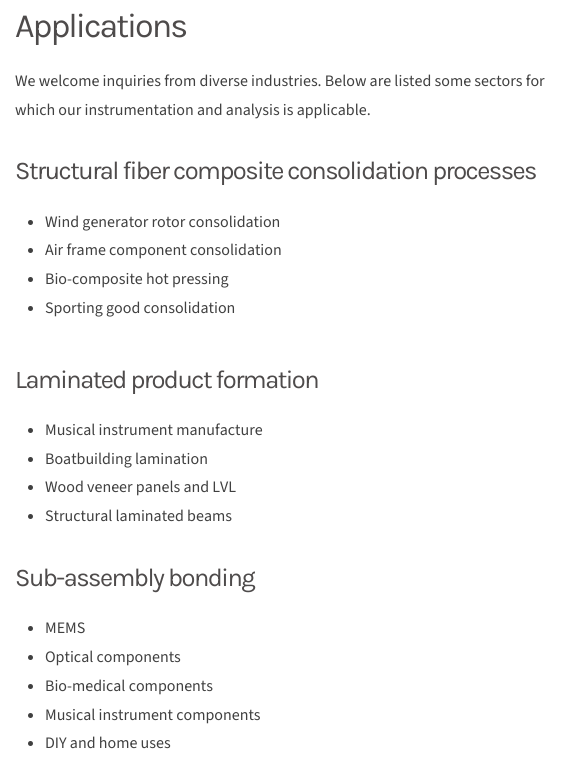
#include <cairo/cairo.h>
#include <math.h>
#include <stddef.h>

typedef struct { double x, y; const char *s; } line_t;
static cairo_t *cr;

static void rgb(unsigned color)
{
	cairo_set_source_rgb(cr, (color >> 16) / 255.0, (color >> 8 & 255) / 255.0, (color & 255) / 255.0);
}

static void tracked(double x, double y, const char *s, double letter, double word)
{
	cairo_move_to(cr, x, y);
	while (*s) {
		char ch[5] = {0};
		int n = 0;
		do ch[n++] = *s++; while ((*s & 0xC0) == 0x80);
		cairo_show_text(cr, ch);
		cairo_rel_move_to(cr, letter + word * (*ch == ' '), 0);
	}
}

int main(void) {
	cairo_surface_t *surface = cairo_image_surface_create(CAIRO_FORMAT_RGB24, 568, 775);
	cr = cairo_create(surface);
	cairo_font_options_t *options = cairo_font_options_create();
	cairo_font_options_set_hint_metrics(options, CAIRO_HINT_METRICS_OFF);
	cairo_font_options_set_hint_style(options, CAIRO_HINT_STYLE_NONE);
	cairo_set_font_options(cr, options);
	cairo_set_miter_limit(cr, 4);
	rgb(0xffffff);
	cairo_paint(cr);
	rgb(0x404040);
	cairo_arc(cr, 30.5, 222.5, 2.5, 0, 2 * M_PI);
	cairo_fill(cr);
	cairo_arc(cr, 30.5, 250.5, 2.5, 0, 2 * M_PI);
	cairo_fill(cr);
	cairo_arc(cr, 30.5, 279.5, 2.5, 0, 2 * M_PI);
	cairo_fill(cr);
	cairo_arc(cr, 30.5, 308.5, 2.5, 0, 2 * M_PI);
	cairo_fill(cr);
	cairo_arc(cr, 30.5, 430.5, 2.5, 0, 2 * M_PI);
	cairo_fill(cr);
	cairo_arc(cr, 30.5, 459.5, 2.5, 0, 2 * M_PI);
	cairo_fill(cr);
	cairo_arc(cr, 30.5, 487.5, 2.5, 0, 2 * M_PI);
	cairo_fill(cr);
	cairo_arc(cr, 30.5, 516.5, 2.5, 0, 2 * M_PI);
	cairo_fill(cr);
	cairo_arc(cr, 30.5, 628.5, 2.5, 0, 2 * M_PI);
	cairo_fill(cr);
	cairo_arc(cr, 30.5, 657.5, 2.5, 0, 2 * M_PI);
	cairo_fill(cr);
	cairo_arc(cr, 30.5, 686.5, 2.5, 0, 2 * M_PI);
	cairo_fill(cr);
	cairo_arc(cr, 30.5, 715.5, 2.5, 0, 2 * M_PI);
	cairo_fill(cr);
	cairo_arc(cr, 30.5, 743.5, 2.5, 0, 2 * M_PI);
	cairo_fill(cr);
	cairo_select_font_face(cr, "Karla", CAIRO_FONT_SLANT_NORMAL, CAIRO_FONT_WEIGHT_NORMAL);
	cairo_set_font_size(cr, 34);
	rgb(0x4e4b4b);
	tracked(15, 37, "Applications", -2, 0);
	cairo_select_font_face(cr, "Source Sans 3 ExtraLight", CAIRO_FONT_SLANT_NORMAL, CAIRO_FONT_WEIGHT_NORMAL);
	cairo_set_font_size(cr, 16);
	rgb(0x404040);
	cairo_move_to(cr, 15, 86);
	cairo_show_text(cr, "We welcome inquiries from diverse industries. Below are listed some sectors for");
	cairo_move_to(cr, 15, 115);
	cairo_show_text(cr, "which our instrumentation and analysis is applicable.");
	cairo_select_font_face(cr, "Karla", CAIRO_FONT_SLANT_NORMAL, CAIRO_FONT_WEIGHT_NORMAL);
	cairo_set_font_size(cr, 25.5);
	rgb(0x4e4b4b);
	tracked(15, 179, "Structural fiber composite consolidation processes", -1.53, 0);
	cairo_select_font_face(cr, "Source Sans 3 ExtraLight", CAIRO_FONT_SLANT_NORMAL, CAIRO_FONT_WEIGHT_NORMAL);
	cairo_set_font_size(cr, 16);
	rgb(0x404040);
	{
		static const line_t items[] = {
			{45, 227, "Wind generator rotor consolidation"},
			{45, 255, "Air frame component consolidation"},
			{45, 284, "Bio-composite hot pressing"},
			{45, 313, "Sporting good consolidation"},
		};
		for (size_t i = 0; i < sizeof items / sizeof *items; i++) {
			cairo_move_to(cr, items[i].x, items[i].y);
			cairo_show_text(cr, items[i].s);
		}
	}
	cairo_select_font_face(cr, "Karla", CAIRO_FONT_SLANT_NORMAL, CAIRO_FONT_WEIGHT_NORMAL);
	cairo_set_font_size(cr, 25.5);
	rgb(0x4e4b4b);
	tracked(15, 388, "Laminated product formation", -1.53, 0);
	cairo_select_font_face(cr, "Source Sans 3 ExtraLight", CAIRO_FONT_SLANT_NORMAL, CAIRO_FONT_WEIGHT_NORMAL);
	cairo_set_font_size(cr, 16);
	rgb(0x404040);
	{
		static const line_t items[] = {
			{45, 435, "Musical instrument manufacture"},
			{45, 464, "Boatbuilding lamination"},
			{45, 492, "Wood veneer panels and LVL"},
			{45, 521, "Structural laminated beams"},
		};
		for (size_t i = 0; i < sizeof items / sizeof *items; i++) {
			cairo_move_to(cr, items[i].x, items[i].y);
			cairo_show_text(cr, items[i].s);
		}
	}
	cairo_select_font_face(cr, "Karla", CAIRO_FONT_SLANT_NORMAL, CAIRO_FONT_WEIGHT_NORMAL);
	cairo_set_font_size(cr, 25.5);
	rgb(0x4e4b4b);
	tracked(15, 586, "Sub-assembly bonding", -1.53, 0);
	cairo_select_font_face(cr, "Source Sans 3 ExtraLight", CAIRO_FONT_SLANT_NORMAL, CAIRO_FONT_WEIGHT_NORMAL);
	cairo_set_font_size(cr, 16);
	rgb(0x404040);
	{
		static const line_t items[] = {
			{45, 633, "MEMS"},
			{45, 662, "Optical components"},
			{45, 691, "Bio-medical components"},
			{45, 720, "Musical instrument components"},
			{45, 748, "DIY and home uses"},
		};
		for (size_t i = 0; i < sizeof items / sizeof *items; i++) {
			cairo_move_to(cr, items[i].x, items[i].y);
			cairo_show_text(cr, items[i].s);
		}
	}
	cairo_surface_write_to_png(surface, "page.png");
	cairo_font_options_destroy(options);
	cairo_destroy(cr);
	cairo_surface_destroy(surface);
	return 0;
}
